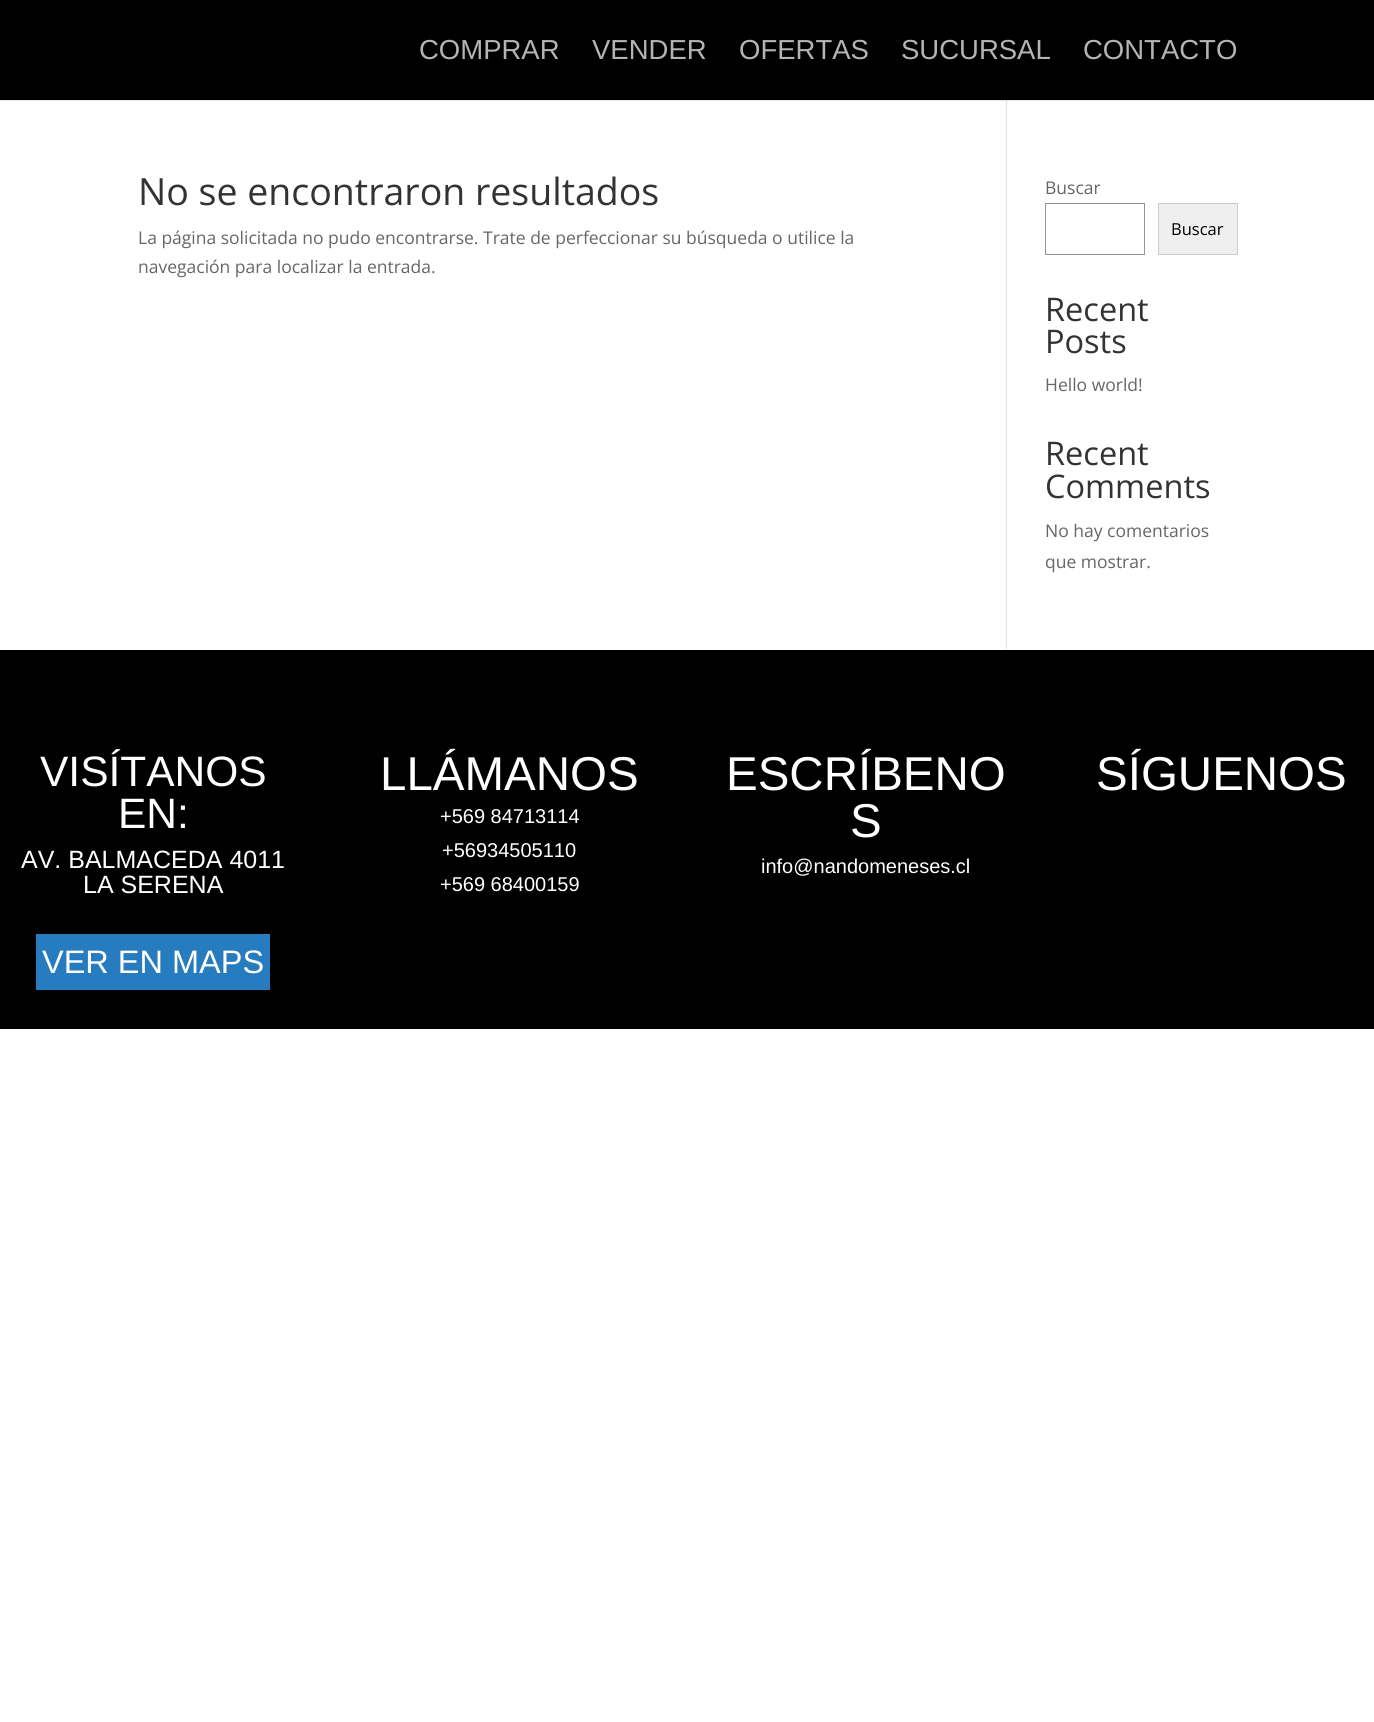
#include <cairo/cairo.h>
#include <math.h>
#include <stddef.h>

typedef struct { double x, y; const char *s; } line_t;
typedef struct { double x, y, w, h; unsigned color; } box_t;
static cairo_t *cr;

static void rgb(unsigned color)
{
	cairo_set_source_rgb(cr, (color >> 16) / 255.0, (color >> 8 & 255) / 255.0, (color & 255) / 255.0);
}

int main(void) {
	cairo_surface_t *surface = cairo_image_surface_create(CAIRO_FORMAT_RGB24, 1374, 1722);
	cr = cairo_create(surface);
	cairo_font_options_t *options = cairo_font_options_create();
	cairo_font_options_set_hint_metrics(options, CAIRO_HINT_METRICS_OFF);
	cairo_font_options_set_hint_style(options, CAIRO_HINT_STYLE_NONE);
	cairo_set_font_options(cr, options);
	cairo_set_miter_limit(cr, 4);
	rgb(0xffffff);
	cairo_paint(cr);
	{
		static const box_t items[] = {
			{0, 100, 1374, 1, 0xe6e6e6},
			{0, 0, 1374, 100, 0x000000},
			{1006, 100, 1, 550, 0xe2e2e2},
			{1006, 100, 1, 1, 0xcbcbcb},
		};
		for (size_t i = 0; i < sizeof items / sizeof *items; i++) {
			rgb(items[i].color);
			cairo_rectangle(cr, items[i].x, items[i].y, items[i].w, items[i].h);
			cairo_fill(cr);
		}
	}
	cairo_rectangle(cr, 1045.5, 203.5, 99, 51);
	rgb(0x949494);
	cairo_set_line_width(cr, 1);
	cairo_stroke(cr);
	rgb(0xefefef);
	cairo_rectangle(cr, 1158.5, 203.5, 79, 51);
	cairo_fill_preserve(cr);
	rgb(0xcccccc);
	cairo_stroke(cr);
	rgb(0x000000);
	cairo_rectangle(cr, 0, 650, 1374, 379);
	cairo_fill(cr);
	rgb(0x267cbf);
	cairo_rectangle(cr, 36, 934, 234, 56);
	cairo_fill(cr);
	cairo_select_font_face(cr, "Liberation Sans", CAIRO_FONT_SLANT_NORMAL, CAIRO_FONT_WEIGHT_NORMAL);
	cairo_set_font_size(cr, 27.5);
	rgb(0xb5b4b4);
	{
		static const line_t items[] = {
			{419, 59, "COMPRAR"},
			{592, 59, "VENDER"},
			{739, 59, "OFERTAS"},
			{901, 59, "SUCURSAL"},
			{1083, 59, "CONTACTO"},
		};
		for (size_t i = 0; i < sizeof items / sizeof *items; i++) {
			cairo_move_to(cr, items[i].x, items[i].y);
			cairo_show_text(cr, items[i].s);
		}
	}
	cairo_select_font_face(cr, "Open Sans", CAIRO_FONT_SLANT_NORMAL, CAIRO_FONT_WEIGHT_NORMAL);
	cairo_set_font_size(cr, 37.5);
	rgb(0x333333);
	cairo_move_to(cr, 138, 205);
	cairo_show_text(cr, "No se encontraron resultados");
	cairo_set_font_size(cr, 17.5);
	rgb(0x666666);
	{
		static const line_t items[] = {
			{138, 244, "La página solicitada no pudo encontrarse. Trate de perfeccionar su búsqueda o utilice la"},
			{138, 273, "navegación para localizar la entrada."},
			{1045, 194, "Buscar"},
		};
		for (size_t i = 0; i < sizeof items / sizeof *items; i++) {
			cairo_move_to(cr, items[i].x, items[i].y);
			cairo_show_text(cr, items[i].s);
		}
	}
	cairo_set_font_size(cr, 16.5);
	rgb(0x000000);
	cairo_move_to(cr, 1171, 235);
	cairo_show_text(cr, "Buscar");
	cairo_set_font_size(cr, 32.5);
	rgb(0x333333);
	cairo_move_to(cr, 1045, 321);
	cairo_show_text(cr, "Recent");
	cairo_move_to(cr, 1045, 353);
	cairo_show_text(cr, "Posts");
	cairo_set_font_size(cr, 17.5);
	rgb(0x666666);
	cairo_move_to(cr, 1045, 391);
	cairo_show_text(cr, "Hello world!");
	cairo_set_font_size(cr, 32.5);
	rgb(0x333333);
	cairo_move_to(cr, 1045, 465);
	cairo_show_text(cr, "Recent");
	cairo_move_to(cr, 1045, 498);
	cairo_show_text(cr, "Comments");
	cairo_set_font_size(cr, 17.5);
	rgb(0x666666);
	cairo_move_to(cr, 1045, 537);
	cairo_show_text(cr, "No hay comentarios");
	cairo_move_to(cr, 1045, 568);
	cairo_show_text(cr, "que mostrar.");
	cairo_select_font_face(cr, "Liberation Sans", CAIRO_FONT_SLANT_NORMAL, CAIRO_FONT_WEIGHT_NORMAL);
	cairo_set_font_size(cr, 42.5);
	rgb(0xffffff);
	cairo_move_to(cr, 40, 786);
	cairo_show_text(cr, "VISÍTANOS");
	cairo_move_to(cr, 118, 828);
	cairo_show_text(cr, "EN:");
	cairo_set_font_size(cr, 25);
	cairo_move_to(cr, 21, 868);
	cairo_show_text(cr, "AV. BALMACEDA 4011");
	cairo_move_to(cr, 83, 893);
	cairo_show_text(cr, "LA SERENA");
	cairo_set_font_size(cr, 32.5);
	cairo_move_to(cr, 42, 973);
	cairo_show_text(cr, "VER EN MAPS");
	cairo_set_font_size(cr, 47.5);
	cairo_move_to(cr, 380, 790);
	cairo_show_text(cr, "LLÁMANOS");
	cairo_set_font_size(cr, 20);
	{
		static const line_t items[] = {
			{440, 823, "+569 84713114"},
			{442, 857, "+56934505110"},
			{440, 891, "+569 68400159"},
		};
		for (size_t i = 0; i < sizeof items / sizeof *items; i++) {
			cairo_move_to(cr, items[i].x, items[i].y);
			cairo_show_text(cr, items[i].s);
		}
	}
	cairo_set_font_size(cr, 47.5);
	cairo_move_to(cr, 726, 790);
	cairo_show_text(cr, "ESCRÍBENO");
	cairo_move_to(cr, 850, 837);
	cairo_show_text(cr, "S");
	cairo_set_font_size(cr, 20);
	cairo_move_to(cr, 761, 873);
	cairo_show_text(cr, "info@nandomeneses.cl");
	cairo_set_font_size(cr, 47.5);
	cairo_move_to(cr, 1096, 790);
	cairo_show_text(cr, "SÍGUENOS");
	cairo_surface_write_to_png(surface, "page.png");
	cairo_font_options_destroy(options);
	cairo_destroy(cr);
	cairo_surface_destroy(surface);
	return 0;
}
